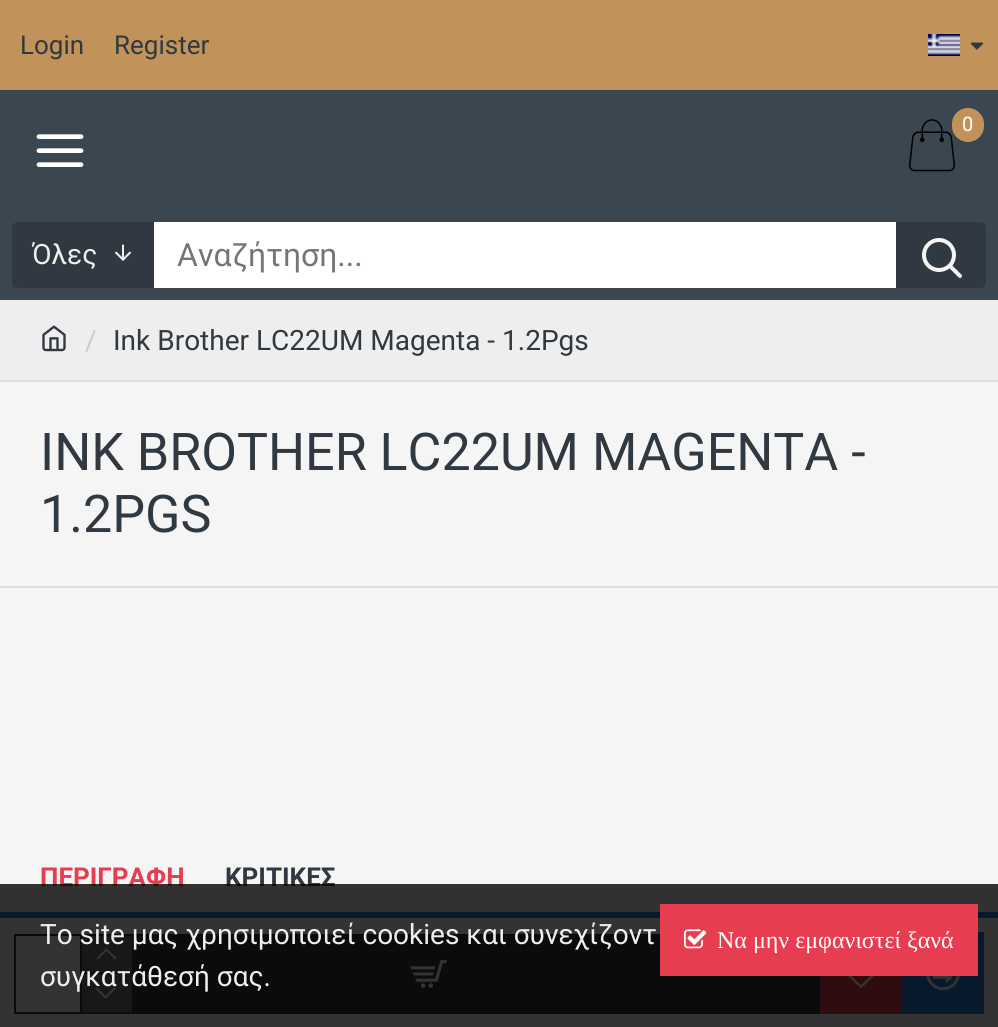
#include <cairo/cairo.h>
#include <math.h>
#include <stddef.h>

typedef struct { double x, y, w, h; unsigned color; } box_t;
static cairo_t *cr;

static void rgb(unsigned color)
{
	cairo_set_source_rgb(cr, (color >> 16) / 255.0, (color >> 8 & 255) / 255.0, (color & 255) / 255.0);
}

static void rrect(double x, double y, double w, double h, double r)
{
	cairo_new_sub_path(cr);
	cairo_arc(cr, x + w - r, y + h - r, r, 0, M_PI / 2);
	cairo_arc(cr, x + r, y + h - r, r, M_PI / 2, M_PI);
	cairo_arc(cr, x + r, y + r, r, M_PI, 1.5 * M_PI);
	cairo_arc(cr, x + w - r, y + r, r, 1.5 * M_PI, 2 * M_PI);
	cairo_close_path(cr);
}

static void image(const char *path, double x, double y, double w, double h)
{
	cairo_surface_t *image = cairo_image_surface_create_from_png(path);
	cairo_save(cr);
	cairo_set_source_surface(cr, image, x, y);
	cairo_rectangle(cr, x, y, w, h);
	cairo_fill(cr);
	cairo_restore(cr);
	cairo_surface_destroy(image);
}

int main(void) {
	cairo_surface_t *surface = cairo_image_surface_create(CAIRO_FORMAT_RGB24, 998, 1027);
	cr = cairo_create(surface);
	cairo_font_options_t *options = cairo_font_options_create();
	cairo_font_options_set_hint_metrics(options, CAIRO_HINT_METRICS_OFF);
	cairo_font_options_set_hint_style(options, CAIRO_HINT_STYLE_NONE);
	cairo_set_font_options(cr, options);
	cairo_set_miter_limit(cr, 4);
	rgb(0xf5f5f5);
	cairo_paint(cr);
	rgb(0xc1935b);
	cairo_rectangle(cr, 0, 0, 998, 90);
	cairo_fill(cr);
	image("img/1.png", 928, 34, 32, 22);
	image("img/2.png", 970, 42, 14, 8);
	rgb(0x3a4750);
	cairo_rectangle(cr, 0, 90, 998, 210);
	cairo_fill(cr);
	image("img/3.png", 909, 119, 46, 53);
	rgb(0xc1935b);
	rrect(952, 108, 32, 34, 16);
	cairo_fill(cr);
	image("img/4.png", 36, 134, 48, 33);
	rgb(0x303841);
	cairo_new_path(cr);
	cairo_move_to(cr, 18, 222);
	cairo_line_to(cr, 154, 222);
	cairo_line_to(cr, 154, 288);
	cairo_line_to(cr, 18, 288);
	cairo_curve_to(cr, 14.5, 288, 12, 285.5, 12, 282);
	cairo_line_to(cr, 12, 228);
	cairo_curve_to(cr, 12, 224.5, 14.5, 222, 18, 222);
	cairo_close_path(cr);
	cairo_fill(cr);
	image("img/5.png", 114, 244, 18, 17);
	rgb(0xffffff);
	cairo_rectangle(cr, 154, 222, 742, 66);
	cairo_fill(cr);
	rgb(0x303841);
	cairo_new_path(cr);
	cairo_move_to(cr, 896, 222);
	cairo_line_to(cr, 980, 222);
	cairo_curve_to(cr, 983.5, 222, 986, 224.5, 986, 228);
	cairo_line_to(cr, 986, 282);
	cairo_curve_to(cr, 986, 285.5, 983.5, 288, 980, 288);
	cairo_line_to(cr, 896, 288);
	cairo_close_path(cr);
	cairo_fill(cr);
	image("img/6.png", 922, 238, 40, 40);
	rgb(0xeeeeee);
	cairo_rectangle(cr, 0, 300, 998, 80);
	cairo_fill(cr);
	rgb(0xdddddd);
	cairo_rectangle(cr, 0, 380, 998, 2);
	cairo_fill(cr);
	image("img/7.png", 42, 325, 24, 27);
	{
		static const box_t items[] = {
			{0, 586, 998, 2, 0xdddddd},
			{0, 918, 998, 109, 0xffffff},
			{0, 912, 998, 6, 0x277cd9},
		};
		for (size_t i = 0; i < sizeof items / sizeof *items; i++) {
			rgb(items[i].color);
			cairo_rectangle(cr, items[i].x, items[i].y, items[i].w, items[i].h);
			cairo_fill(cr);
		}
	}
	cairo_rectangle(cr, 15, 935, 118, 78);
	rgb(0x303841);
	cairo_stroke(cr);
	{
		static const box_t items[] = {
			{80, 936, 2, 76, 0x303841},
			{82, 936, 50, 36, 0x6d767d},
			{82, 972, 50, 2, 0x303841},
		};
		for (size_t i = 0; i < sizeof items / sizeof *items; i++) {
			rgb(items[i].color);
			cairo_rectangle(cr, items[i].x, items[i].y, items[i].w, items[i].h);
			cairo_fill(cr);
		}
	}
	image("img/8.png", 96, 948, 21, 12);
	rgb(0x6d767d);
	cairo_rectangle(cr, 82, 974, 50, 38);
	cairo_fill(cr);
	image("img/9.png", 95, 987, 21, 12);
	rgb(0x303841);
	cairo_rectangle(cr, 134, 934, 686, 80);
	cairo_fill(cr);
	image("img/10.png", 410, 960, 37, 28);
	rgb(0xe73d50);
	cairo_rectangle(cr, 820, 976, 82, 38);
	cairo_fill(cr);
	image("img/11.png", 848, 976, 26, 12);
	rgb(0x277cd9);
	cairo_rectangle(cr, 902, 932, 82, 82);
	cairo_fill(cr);
	image("img/12.png", 926, 976, 34, 15);
	cairo_select_font_face(cr, "Roboto", CAIRO_FONT_SLANT_NORMAL, CAIRO_FONT_WEIGHT_NORMAL);
	cairo_set_font_size(cr, 26);
	rgb(0x303841);
	cairo_move_to(cr, 20, 54);
	cairo_show_text(cr, "Login");
	cairo_move_to(cr, 114, 54);
	cairo_show_text(cr, "Register");
	cairo_set_font_size(cr, 20);
	rgb(0xffffff);
	cairo_move_to(cr, 962, 131);
	cairo_show_text(cr, "0");
	cairo_set_font_size(cr, 28);
	rgb(0xeeeeee);
	cairo_move_to(cr, 32, 264);
	cairo_show_text(cr, "Όλες");
	cairo_set_font_size(cr, 32);
	rgb(0x757575);
	cairo_move_to(cr, 177, 266);
	cairo_show_text(cr, "Αναζήτηση...");
	cairo_set_font_size(cr, 28);
	rgb(0xcccccc);
	cairo_move_to(cr, 85, 350);
	cairo_show_text(cr, "/");
	rgb(0x303841);
	cairo_move_to(cr, 113, 350);
	cairo_show_text(cr, "Ink Brother LC22UM Magenta - 1.2Pgs");
	cairo_set_font_size(cr, 52);
	cairo_move_to(cr, 40, 470);
	cairo_show_text(cr, "INK BROTHER LC22UM MAGENTA -");
	cairo_move_to(cr, 40, 532);
	cairo_show_text(cr, "1.2PGS");
	cairo_select_font_face(cr, "Roboto", CAIRO_FONT_SLANT_NORMAL, CAIRO_FONT_WEIGHT_BOLD);
	cairo_set_font_size(cr, 26);
	rgb(0xe73d50);
	cairo_move_to(cr, 40, 886);
	cairo_show_text(cr, "ΠΕΡΙΓΡΑΦΗ");
	rgb(0x303841);
	cairo_move_to(cr, 225, 886);
	cairo_show_text(cr, "ΚΡΙΤΙΚΕΣ");
	cairo_set_source_rgba(cr, 0, 0, 0, 0.8);
	cairo_rectangle(cr, 0, 884, 998, 143);
	cairo_fill(cr);
	cairo_select_font_face(cr, "Roboto", CAIRO_FONT_SLANT_NORMAL, CAIRO_FONT_WEIGHT_NORMAL);
	cairo_set_font_size(cr, 28);
	rgb(0xeeeeee);
	cairo_move_to(cr, 40, 944);
	cairo_show_text(cr, "Το site μας χρησιμοποιεί cookies και συνεχίζοντ");
	cairo_move_to(cr, 40, 986);
	cairo_show_text(cr, "συγκατάθεσή σας.");
	rgb(0xe73d50);
	cairo_rectangle(cr, 660, 904, 318, 72);
	cairo_fill(cr);
	image("img/13.png", 684, 929, 23, 20);
	cairo_select_font_face(cr, "Liberation Serif", CAIRO_FONT_SLANT_NORMAL, CAIRO_FONT_WEIGHT_NORMAL);
	cairo_set_font_size(cr, 24);
	rgb(0xffffff);
	cairo_move_to(cr, 717, 948);
	cairo_show_text(cr, "Να μην εμφανιστεί ξανά");
	cairo_surface_write_to_png(surface, "page.png");
	cairo_font_options_destroy(options);
	cairo_destroy(cr);
	cairo_surface_destroy(surface);
	return 0;
}
